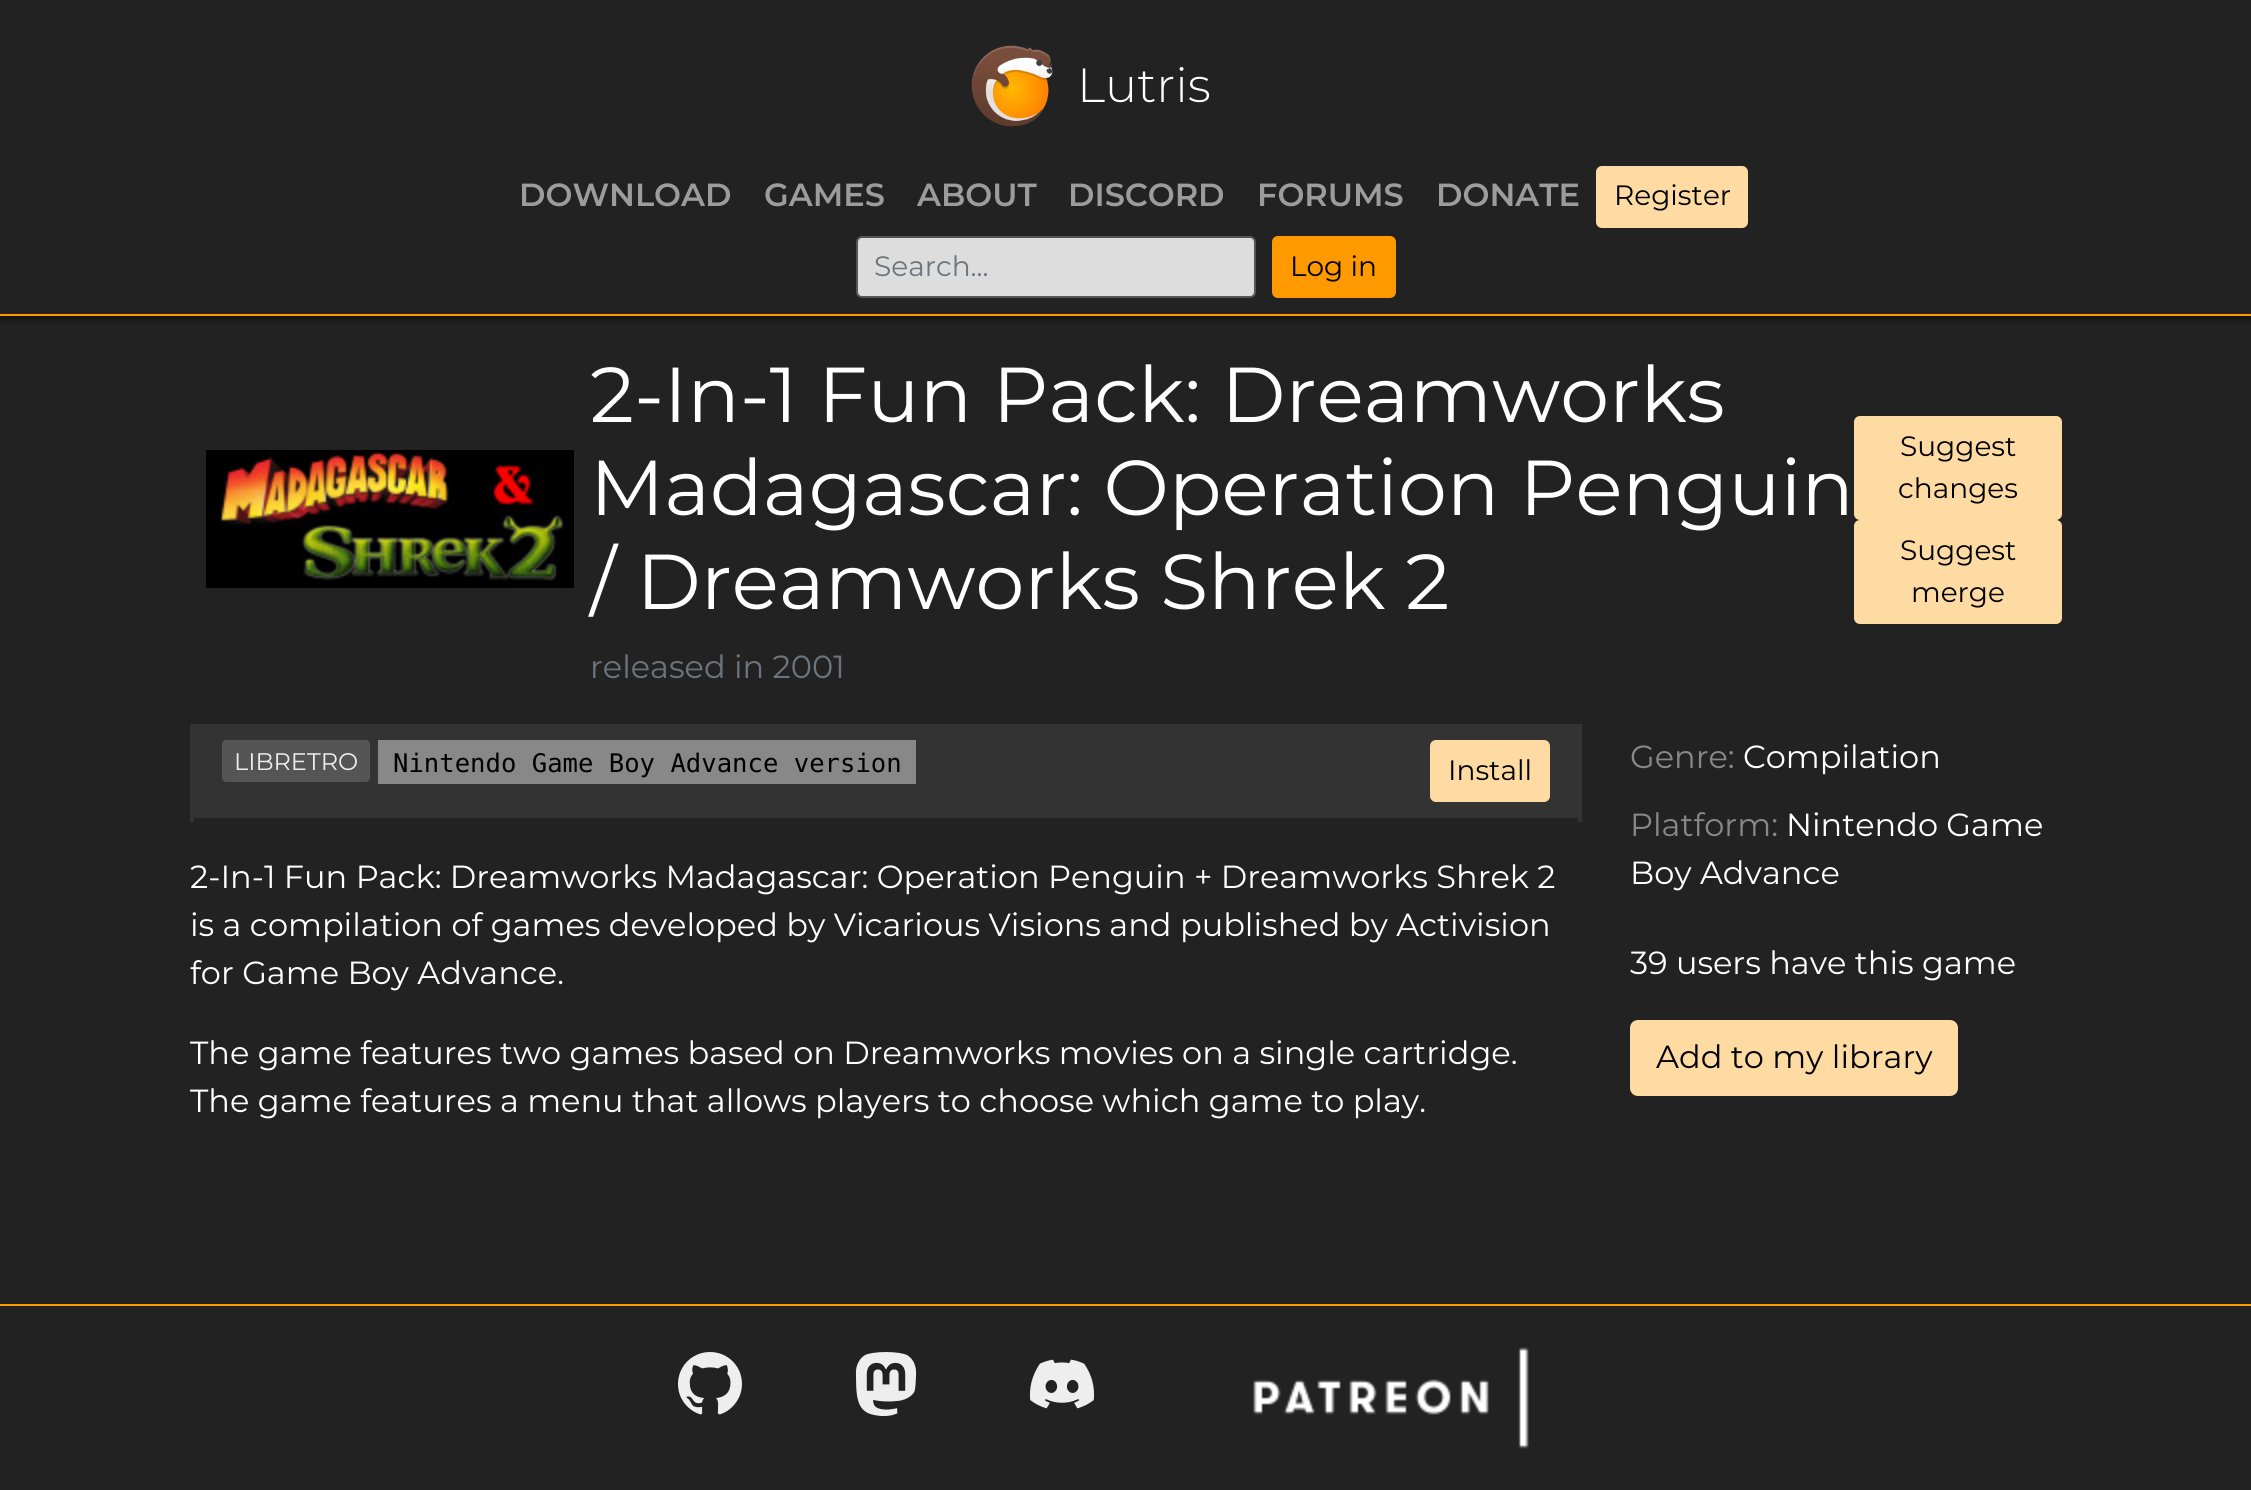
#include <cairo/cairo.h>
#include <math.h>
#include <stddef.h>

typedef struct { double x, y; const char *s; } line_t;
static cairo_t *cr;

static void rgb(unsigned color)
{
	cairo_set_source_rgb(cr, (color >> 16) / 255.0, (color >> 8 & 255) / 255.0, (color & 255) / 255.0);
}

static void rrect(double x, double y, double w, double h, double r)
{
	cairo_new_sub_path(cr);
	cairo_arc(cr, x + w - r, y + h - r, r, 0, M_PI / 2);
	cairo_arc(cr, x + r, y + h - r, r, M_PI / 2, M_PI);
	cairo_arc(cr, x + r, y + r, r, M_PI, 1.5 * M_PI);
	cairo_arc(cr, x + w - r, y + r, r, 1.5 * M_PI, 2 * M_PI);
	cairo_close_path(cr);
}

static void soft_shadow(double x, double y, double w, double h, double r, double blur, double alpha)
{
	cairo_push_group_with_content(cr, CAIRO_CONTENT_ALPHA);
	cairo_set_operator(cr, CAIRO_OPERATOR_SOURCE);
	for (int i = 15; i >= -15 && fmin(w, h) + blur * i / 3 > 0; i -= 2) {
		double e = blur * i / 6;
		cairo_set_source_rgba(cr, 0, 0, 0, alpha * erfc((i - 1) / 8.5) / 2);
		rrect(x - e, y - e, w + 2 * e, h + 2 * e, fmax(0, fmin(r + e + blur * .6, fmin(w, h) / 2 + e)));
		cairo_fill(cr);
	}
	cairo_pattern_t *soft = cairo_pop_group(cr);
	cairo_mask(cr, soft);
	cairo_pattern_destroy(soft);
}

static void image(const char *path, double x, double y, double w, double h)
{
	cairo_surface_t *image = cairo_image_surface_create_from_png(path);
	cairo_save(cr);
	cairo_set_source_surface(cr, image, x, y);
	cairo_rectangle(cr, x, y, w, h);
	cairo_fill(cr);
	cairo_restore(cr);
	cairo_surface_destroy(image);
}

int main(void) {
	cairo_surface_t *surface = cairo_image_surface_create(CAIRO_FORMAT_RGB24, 2251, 1490);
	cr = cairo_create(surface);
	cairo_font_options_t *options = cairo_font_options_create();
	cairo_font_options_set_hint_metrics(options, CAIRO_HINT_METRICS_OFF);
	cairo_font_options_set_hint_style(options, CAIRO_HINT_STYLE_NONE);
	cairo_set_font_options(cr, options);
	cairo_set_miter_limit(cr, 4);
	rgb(0x222222);
	cairo_paint(cr);
	cairo_save(cr);
	cairo_rectangle(cr, 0, 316, 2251, 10);
	cairo_clip(cr);
	rgb(0x000000);
	soft_shadow(0, 0, 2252, 316, 0, 5, 1);
	cairo_restore(cr);
	rgb(0xff9900);
	cairo_rectangle(cr, 0, 314, 2251, 2);
	cairo_fill(cr);
	image("img/1.png", 971, 45, 82, 82);
	rgb(0xffdba4);
	rrect(1597, 167, 150, 60, 5);
	cairo_fill_preserve(cr);
	cairo_stroke(cr);
	rgb(0xdddddd);
	rrect(857, 237, 398, 60, 5);
	cairo_fill_preserve(cr);
	rgb(0x555555);
	cairo_stroke(cr);
	rgb(0xff9900);
	rrect(1273, 237, 122, 60, 5);
	cairo_fill_preserve(cr);
	cairo_stroke(cr);
	image("img/2.png", 206, 450, 368, 138);
	rgb(0xffdba4);
	rrect(1855, 417, 206, 102, 5);
	cairo_fill_preserve(cr);
	cairo_stroke(cr);
	rrect(1855, 521, 206, 102, 5);
	cairo_fill_preserve(cr);
	cairo_stroke(cr);
	rgb(0x333333);
	cairo_rectangle(cr, 190, 724, 1392, 98);
	cairo_fill(cr);
	rgb(0x222222);
	cairo_rectangle(cr, 194, 818, 1384, 4);
	cairo_fill(cr);
	rgb(0x555555);
	rrect(222, 740, 148, 42, 4);
	cairo_fill(cr);
	rgb(0x888888);
	cairo_rectangle(cr, 378, 740, 538, 44);
	cairo_fill(cr);
	rgb(0xffdba4);
	rrect(1431, 741, 118, 60, 5);
	cairo_fill_preserve(cr);
	cairo_stroke(cr);
	rrect(1631, 1021, 326, 74, 7);
	cairo_fill_preserve(cr);
	cairo_stroke(cr);
	rgb(0xff9900);
	cairo_rectangle(cr, 0, 1304, 2251, 2);
	cairo_fill(cr);
	image("img/3.png", 678, 1352, 64, 63);
	image("img/4.png", 855, 1352, 62, 65);
	image("img/5.png", 1030, 1359, 65, 50);
	image("img/6.png", 1253, 1347, 276, 102);
	cairo_select_font_face(cr, "Montserrat Light", CAIRO_FONT_SLANT_NORMAL, CAIRO_FONT_WEIGHT_NORMAL);
	cairo_set_font_size(cr, 48);
	rgb(0xffffff);
	cairo_move_to(cr, 1077, 102);
	cairo_show_text(cr, "Lutris");
	cairo_select_font_face(cr, "Montserrat SemiBold", CAIRO_FONT_SLANT_NORMAL, CAIRO_FONT_WEIGHT_NORMAL);
	cairo_set_font_size(cr, 32);
	rgb(0x9c9c9c);
	{
		static const line_t items[] = {
			{519, 206, "DOWNLOAD"},
			{764, 206, "GAMES"},
			{917, 206, "ABOUT"},
			{1068, 206, "DISCORD"},
			{1257, 206, "FORUMS"},
			{1436, 206, "DONATE"},
		};
		for (size_t i = 0; i < sizeof items / sizeof *items; i++) {
			cairo_move_to(cr, items[i].x, items[i].y);
			cairo_show_text(cr, items[i].s);
		}
	}
	cairo_select_font_face(cr, "Montserrat", CAIRO_FONT_SLANT_NORMAL, CAIRO_FONT_WEIGHT_NORMAL);
	cairo_set_font_size(cr, 28);
	rgb(0x000000);
	cairo_move_to(cr, 1614, 205);
	cairo_show_text(cr, "Register");
	rgb(0x6c757d);
	cairo_move_to(cr, 874, 276);
	cairo_show_text(cr, "Search...");
	rgb(0x000000);
	cairo_move_to(cr, 1290, 276);
	cairo_show_text(cr, "Log in");
	cairo_set_font_size(cr, 77.75);
	rgb(0xffffff);
	{
		static const line_t items[] = {
			{590, 422, "2-In-1 Fun Pack: Dreamworks"},
			{590, 515, "Madagascar: Operation Penguin"},
			{590, 609, "/ Dreamworks Shrek 2"},
		};
		for (size_t i = 0; i < sizeof items / sizeof *items; i++) {
			cairo_move_to(cr, items[i].x, items[i].y);
			cairo_show_text(cr, items[i].s);
		}
	}
	cairo_set_font_size(cr, 32);
	rgb(0x6c757d);
	cairo_move_to(cr, 590, 678);
	cairo_show_text(cr, "released in 2001");
	cairo_set_font_size(cr, 28);
	rgb(0x000000);
	{
		static const line_t items[] = {
			{1900, 456, "Suggest"},
			{1898, 498, "changes"},
			{1900, 560, "Suggest"},
			{1911, 602, "merge"},
		};
		for (size_t i = 0; i < sizeof items / sizeof *items; i++) {
			cairo_move_to(cr, items[i].x, items[i].y);
			cairo_show_text(cr, items[i].s);
		}
	}
	cairo_set_font_size(cr, 24);
	rgb(0xededed);
	cairo_move_to(cr, 234, 770);
	cairo_show_text(cr, "LIBRETRO");
	cairo_select_font_face(cr, "DejaVu Sans Mono", CAIRO_FONT_SLANT_NORMAL, CAIRO_FONT_WEIGHT_NORMAL);
	cairo_set_font_size(cr, 25.6);
	rgb(0x000000);
	cairo_move_to(cr, 393, 772);
	cairo_show_text(cr, "Nintendo Game Boy Advance version");
	cairo_select_font_face(cr, "Montserrat", CAIRO_FONT_SLANT_NORMAL, CAIRO_FONT_WEIGHT_NORMAL);
	cairo_set_font_size(cr, 28);
	cairo_move_to(cr, 1448, 780);
	cairo_show_text(cr, "Install");
	cairo_set_font_size(cr, 32);
	rgb(0xffffff);
	{
		static const line_t items[] = {
			{190, 888, "2-In-1 Fun Pack: Dreamworks Madagascar: Operation Penguin + Dreamworks Shrek 2"},
			{190, 936, "is a compilation of games developed by Vicarious Visions and published by Activision"},
			{190, 984, "for Game Boy Advance."},
			{190, 1064, "The game features two games based on Dreamworks movies on a single cartridge."},
			{190, 1112, "The game features a menu that allows players to choose which game to play."},
		};
		for (size_t i = 0; i < sizeof items / sizeof *items; i++) {
			cairo_move_to(cr, items[i].x, items[i].y);
			cairo_show_text(cr, items[i].s);
		}
	}
	rgb(0x888888);
	cairo_move_to(cr, 1630, 768);
	cairo_show_text(cr, "Genre:");
	rgb(0xffffff);
	cairo_move_to(cr, 1743, 768);
	cairo_show_text(cr, "Compilation");
	rgb(0x888888);
	cairo_move_to(cr, 1630, 836);
	cairo_show_text(cr, "Platform:");
	rgb(0xffffff);
	{
		static const line_t items[] = {
			{1786, 836, "Nintendo Game"},
			{1630, 884, "Boy Advance"},
			{1630, 974, "39 users have this game"},
		};
		for (size_t i = 0; i < sizeof items / sizeof *items; i++) {
			cairo_move_to(cr, items[i].x, items[i].y);
			cairo_show_text(cr, items[i].s);
		}
	}
	rgb(0x000000);
	cairo_move_to(cr, 1656, 1068);
	cairo_show_text(cr, "Add to my library");
	cairo_surface_write_to_png(surface, "page.png");
	cairo_font_options_destroy(options);
	cairo_destroy(cr);
	cairo_surface_destroy(surface);
	return 0;
}
